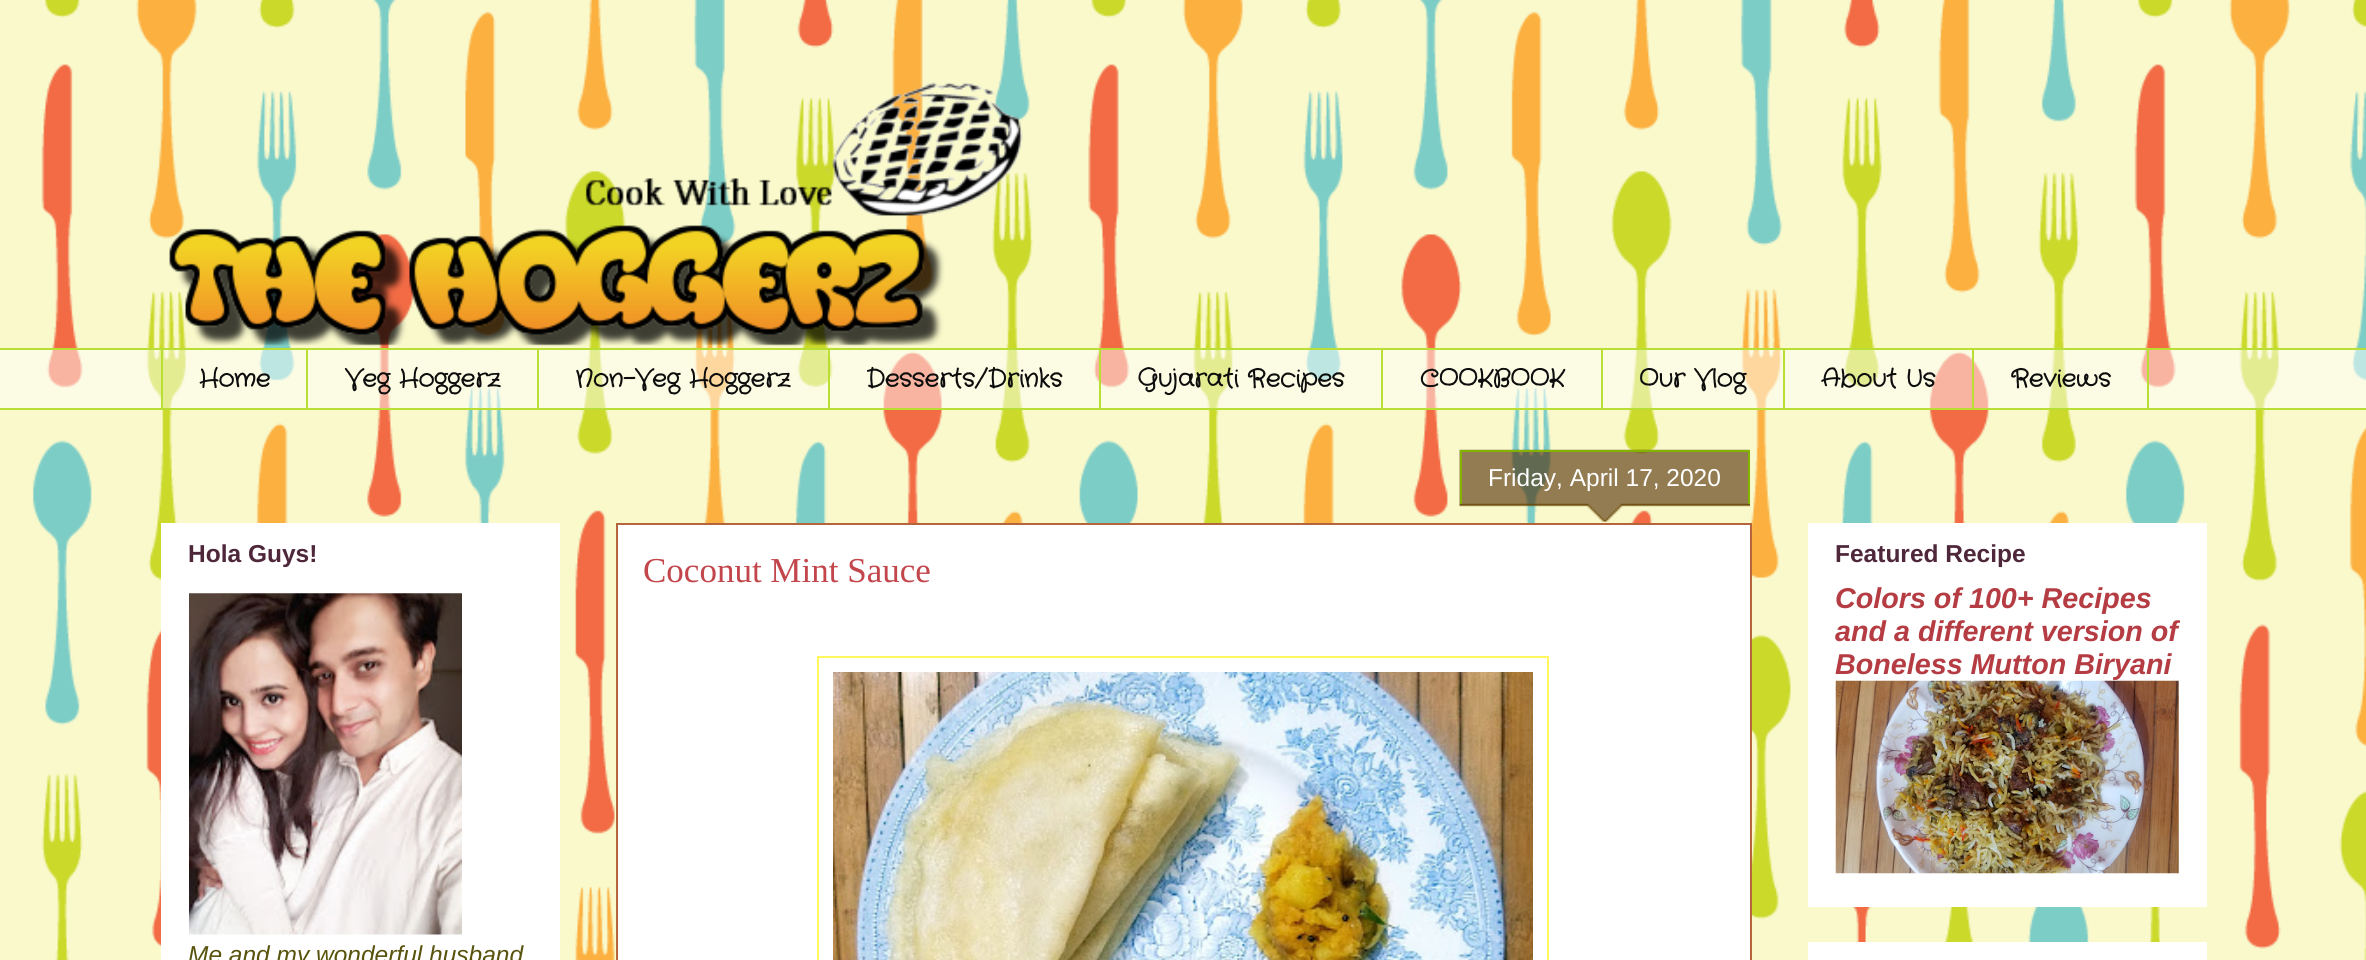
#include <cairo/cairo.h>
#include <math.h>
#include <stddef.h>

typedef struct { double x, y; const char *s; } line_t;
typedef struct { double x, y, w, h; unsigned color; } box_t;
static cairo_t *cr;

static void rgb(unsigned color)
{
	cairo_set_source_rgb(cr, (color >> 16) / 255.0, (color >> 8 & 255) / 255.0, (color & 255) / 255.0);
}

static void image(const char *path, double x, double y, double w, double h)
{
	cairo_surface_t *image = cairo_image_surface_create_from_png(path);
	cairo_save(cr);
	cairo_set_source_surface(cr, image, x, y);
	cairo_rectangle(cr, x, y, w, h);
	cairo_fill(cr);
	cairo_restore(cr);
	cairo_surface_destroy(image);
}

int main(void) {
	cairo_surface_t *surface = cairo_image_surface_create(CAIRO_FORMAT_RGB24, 2366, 960);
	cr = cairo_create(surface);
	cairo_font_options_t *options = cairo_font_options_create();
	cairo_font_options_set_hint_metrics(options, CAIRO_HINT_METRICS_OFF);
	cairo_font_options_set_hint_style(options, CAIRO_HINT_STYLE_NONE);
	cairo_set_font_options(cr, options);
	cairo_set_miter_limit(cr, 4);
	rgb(0xf9f9cc);
	cairo_paint(cr);
	image("img/1.png", 32, 0, 2334, 960);
	image("img/2.png", 169, 82, 854, 264);
	cairo_set_source_rgba(cr, 1, 1, 1, 0.49);
	cairo_rectangle(cr, 0, 350, 2366, 58);
	cairo_fill(cr);
	rgb(0xbadf34);
	cairo_rectangle(cr, 0, 348, 2366, 2);
	cairo_fill(cr);
	cairo_rectangle(cr, 161, 348, 2, 62);
	cairo_fill(cr);
	cairo_rectangle(cr, 306, 348, 2, 62);
	cairo_fill(cr);
	cairo_rectangle(cr, 537, 348, 2, 62);
	cairo_fill(cr);
	cairo_rectangle(cr, 828, 348, 2, 62);
	cairo_fill(cr);
	cairo_rectangle(cr, 1099, 348, 2, 62);
	cairo_fill(cr);
	cairo_rectangle(cr, 1381, 348, 2, 62);
	cairo_fill(cr);
	cairo_rectangle(cr, 1601, 348, 2, 62);
	cairo_fill(cr);
	cairo_rectangle(cr, 1783, 348, 2, 62);
	cairo_fill(cr);
	cairo_rectangle(cr, 1973, 349, 175, 60);
	cairo_stroke(cr);
	cairo_rectangle(cr, 0, 408, 2366, 2);
	cairo_fill(cr);
	rgb(0xffffff);
	cairo_rectangle(cr, 617, 524, 1134, 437);
	cairo_fill_preserve(cr);
	rgb(0xb5653b);
	cairo_stroke(cr);
	image("img/3.png", 1459, 449, 291, 73);
	{
		static const box_t items[] = {
			{1460, 450, 290, 2, 0x83b300},
			{1748, 452, 2, 52, 0x83b300},
			{1460, 452, 2, 52, 0x83b300},
		};
		for (size_t i = 0; i < sizeof items / sizeof *items; i++) {
			rgb(items[i].color);
			cairo_rectangle(cr, items[i].x, items[i].y, items[i].w, items[i].h);
			cairo_fill(cr);
		}
	}
	cairo_rectangle(cr, 818, 657, 730, 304);
	rgb(0xfff75c);
	cairo_stroke(cr);
	image("img/4.png", 833, 672, 700, 288);
	rgb(0xffffff);
	cairo_rectangle(cr, 161, 523, 399, 437);
	cairo_fill(cr);
	image("img/5.png", 189, 593, 273, 342);
	cairo_rectangle(cr, 1808, 523, 399, 384);
	cairo_fill(cr);
	image("img/6.png", 1835, 680, 344, 194);
	cairo_rectangle(cr, 1808, 942, 399, 18);
	cairo_fill(cr);
	cairo_select_font_face(cr, "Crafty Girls", CAIRO_FONT_SLANT_NORMAL, CAIRO_FONT_WEIGHT_BOLD);
	cairo_set_font_size(cr, 24.5);
	rgb(0x0d0d0d);
	{
		static const line_t items[] = {
			{199, 386, "Home"},
			{345, 386, "Veg Hoggerz"},
			{575, 386, "Non-Veg Hoggerz"},
			{866, 386, "Desserts/Drinks"},
			{1137, 386, "Gujarati Recipes"},
			{1420, 386, "COOKBOOK"},
			{1639, 386, "Our Vlog"},
			{1821, 386, "About Us"},
			{2011, 386, "Reviews"},
		};
		for (size_t i = 0; i < sizeof items / sizeof *items; i++) {
			cairo_move_to(cr, items[i].x, items[i].y);
			cairo_show_text(cr, items[i].s);
		}
	}
	cairo_select_font_face(cr, "Liberation Sans", CAIRO_FONT_SLANT_NORMAL, CAIRO_FONT_WEIGHT_NORMAL);
	rgb(0xffffff);
	cairo_move_to(cr, 1488, 486);
	cairo_show_text(cr, "Friday, April 17, 2020");
	cairo_select_font_face(cr, "Liberation Serif", CAIRO_FONT_SLANT_NORMAL, CAIRO_FONT_WEIGHT_NORMAL);
	cairo_set_font_size(cr, 35);
	rgb(0xc2464b);
	cairo_move_to(cr, 643, 582);
	cairo_show_text(cr, "Coconut Mint Sauce");
	cairo_select_font_face(cr, "Liberation Sans", CAIRO_FONT_SLANT_NORMAL, CAIRO_FONT_WEIGHT_BOLD);
	cairo_set_font_size(cr, 24.5);
	rgb(0x4e273a);
	cairo_move_to(cr, 188, 562);
	cairo_show_text(cr, "Hola Guys!");
	cairo_select_font_face(cr, "Liberation Sans", CAIRO_FONT_SLANT_ITALIC, CAIRO_FONT_WEIGHT_NORMAL);
	rgb(0x58530d);
	cairo_move_to(cr, 188, 963);
	cairo_show_text(cr, "Me and my wonderful husband");
	cairo_select_font_face(cr, "Liberation Sans", CAIRO_FONT_SLANT_NORMAL, CAIRO_FONT_WEIGHT_BOLD);
	rgb(0x4e273a);
	cairo_move_to(cr, 1835, 562);
	cairo_show_text(cr, "Featured Recipe");
	cairo_select_font_face(cr, "Liberation Sans", CAIRO_FONT_SLANT_ITALIC, CAIRO_FONT_WEIGHT_BOLD);
	cairo_set_font_size(cr, 28.7);
	rgb(0xb43c42);
	{
		static const line_t items[] = {
			{1835, 608, "Colors of 100+ Recipes"},
			{1835, 641, "and a different version of"},
			{1835, 674, "Boneless Mutton Biryani"},
		};
		for (size_t i = 0; i < sizeof items / sizeof *items; i++) {
			cairo_move_to(cr, items[i].x, items[i].y);
			cairo_show_text(cr, items[i].s);
		}
	}
	cairo_surface_write_to_png(surface, "page.png");
	cairo_font_options_destroy(options);
	cairo_destroy(cr);
	cairo_surface_destroy(surface);
	return 0;
}
